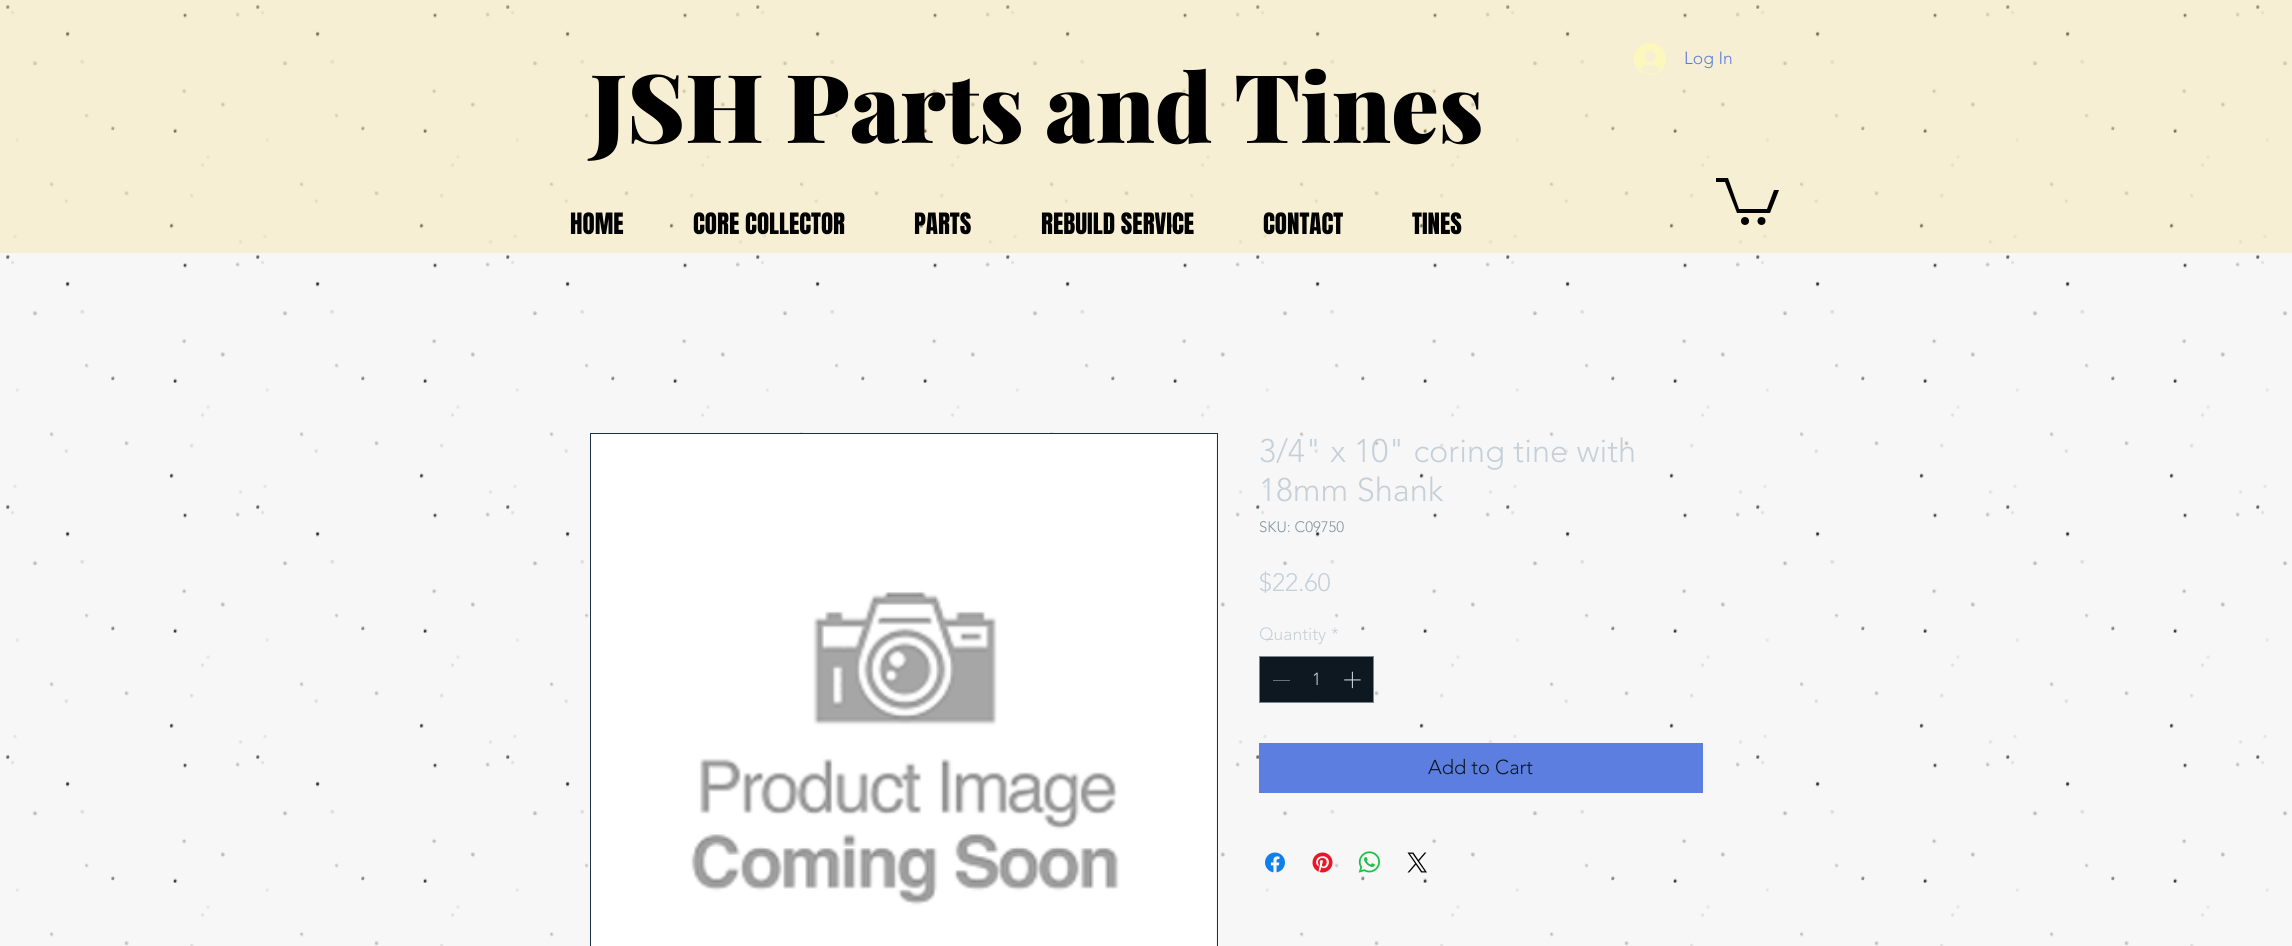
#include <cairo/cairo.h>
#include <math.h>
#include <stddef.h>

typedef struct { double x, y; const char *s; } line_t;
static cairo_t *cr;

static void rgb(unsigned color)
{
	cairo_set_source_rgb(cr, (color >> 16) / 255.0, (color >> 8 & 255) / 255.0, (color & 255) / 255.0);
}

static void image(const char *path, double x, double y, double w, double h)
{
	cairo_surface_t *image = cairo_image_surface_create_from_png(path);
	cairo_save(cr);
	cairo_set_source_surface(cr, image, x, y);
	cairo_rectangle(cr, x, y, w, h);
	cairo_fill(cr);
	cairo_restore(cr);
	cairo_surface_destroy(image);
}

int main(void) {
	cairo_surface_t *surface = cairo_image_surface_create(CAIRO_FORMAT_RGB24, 2292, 946);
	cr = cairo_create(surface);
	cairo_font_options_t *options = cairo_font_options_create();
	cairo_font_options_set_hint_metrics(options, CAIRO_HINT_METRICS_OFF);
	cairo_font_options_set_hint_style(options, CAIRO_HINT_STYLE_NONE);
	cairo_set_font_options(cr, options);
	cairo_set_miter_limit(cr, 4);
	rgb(0xf7f7f7);
	cairo_paint(cr);
	image("img/1.png", 6, 4, 2282, 942);
	cairo_set_source_rgba(cr, 0.969, 0.875, 0.553, 0.34);
	cairo_rectangle(cr, 0, 0, 2292, 253);
	cairo_fill(cr);
	image("img/2.png", 1634, 43, 32, 32);
	rgb(0x000000);
	cairo_new_path(cr);
	cairo_move_to(cr, 1779, 190);
	cairo_line_to(cr, 1770, 213);
	cairo_line_to(cr, 1737, 213);
	cairo_line_to(cr, 1725, 182);
	cairo_line_to(cr, 1716, 182);
	cairo_line_to(cr, 1716, 178);
	cairo_line_to(cr, 1728, 178);
	cairo_line_to(cr, 1739, 209);
	cairo_line_to(cr, 1767, 209);
	cairo_line_to(cr, 1774, 190);
	cairo_fill(cr);
	cairo_arc(cr, 1761.5, 221, 4, 0, 2 * M_PI);
	cairo_fill(cr);
	cairo_arc(cr, 1745, 221, 4, 0, 2 * M_PI);
	cairo_fill(cr);
	cairo_rectangle(cr, 590.5, 433.5, 627, 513);
	rgb(0x1c3142);
	cairo_set_line_width(cr, 1);
	cairo_stroke(cr);
	image("img/3.png", 591, 434, 625, 512);
	rgb(0x0e1821);
	cairo_rectangle(cr, 1259.5, 656.5, 114, 46);
	cairo_fill_preserve(cr);
	rgb(0x7c868f);
	cairo_stroke(cr);
	rgb(0x6b7074);
	cairo_rectangle(cr, 1273, 680, 17, 1);
	cairo_fill(cr);
	image("img/4.png", 1344, 671, 17, 18);
	rgb(0x5b7ee0);
	cairo_rectangle(cr, 1259, 743, 444, 50);
	cairo_fill(cr);
	image("img/5.png", 1265, 852, 20, 21);
	image("img/6.png", 1312, 852, 21, 21);
	image("img/7.png", 1358, 851, 22, 22);
	image("img/8.png", 1407, 852, 20, 21);
	cairo_select_font_face(cr, "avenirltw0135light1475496 Light", CAIRO_FONT_SLANT_NORMAL, CAIRO_FONT_WEIGHT_NORMAL);
	cairo_set_font_size(cr, 17.5);
	cairo_move_to(cr, 1684, 64);
	cairo_show_text(cr, "Log In");
	cairo_select_font_face(cr, "Playfair Display Black", CAIRO_FONT_SLANT_NORMAL, CAIRO_FONT_WEIGHT_NORMAL);
	cairo_set_font_size(cr, 95);
	rgb(0x000000);
	cairo_move_to(cr, 590, 143);
	cairo_show_text(cr, "JSH Parts and Tines");
	cairo_select_font_face(cr, "Anton", CAIRO_FONT_SLANT_NORMAL, CAIRO_FONT_WEIGHT_NORMAL);
	cairo_set_font_size(cr, 25);
	{
		static const line_t items[] = {
			{570, 234, "HOME"},
			{693, 234, "CORE COLLECTOR"},
			{914, 234, "PARTS"},
			{1041, 234, "REBUILD SERVICE"},
			{1263, 234, "CONTACT"},
			{1412, 234, "TINES"},
		};
		for (size_t i = 0; i < sizeof items / sizeof *items; i++) {
			cairo_move_to(cr, items[i].x, items[i].y);
			cairo_show_text(cr, items[i].s);
		}
	}
	cairo_select_font_face(cr, "avenirltw0135light1475496 Light", CAIRO_FONT_SLANT_NORMAL, CAIRO_FONT_WEIGHT_NORMAL);
	cairo_set_font_size(cr, 32.5);
	rgb(0xc5d0d9);
	cairo_move_to(cr, 1259, 462);
	cairo_show_text(cr, "3/4\" x 10\" coring tine with");
	cairo_move_to(cr, 1259, 501);
	cairo_show_text(cr, "18mm Shank");
	cairo_set_font_size(cr, 15);
	rgb(0x8293a1);
	cairo_move_to(cr, 1259, 532);
	cairo_show_text(cr, "SKU: C09750");
	cairo_set_font_size(cr, 25);
	rgb(0xc5d0d9);
	cairo_move_to(cr, 1259, 591);
	cairo_show_text(cr, "$22.60");
	cairo_set_font_size(cr, 17.5);
	{
		static const line_t items[] = {
			{1259, 640, "Quantity"},
			{1331, 640, "*"},
			{1312, 685, "1"},
		};
		for (size_t i = 0; i < sizeof items / sizeof *items; i++) {
			cairo_move_to(cr, items[i].x, items[i].y);
			cairo_show_text(cr, items[i].s);
		}
	}
	cairo_set_font_size(cr, 20);
	rgb(0x0e1821);
	cairo_move_to(cr, 1428, 774);
	cairo_show_text(cr, "Add to Cart");
	cairo_surface_write_to_png(surface, "page.png");
	cairo_font_options_destroy(options);
	cairo_destroy(cr);
	cairo_surface_destroy(surface);
	return 0;
}
